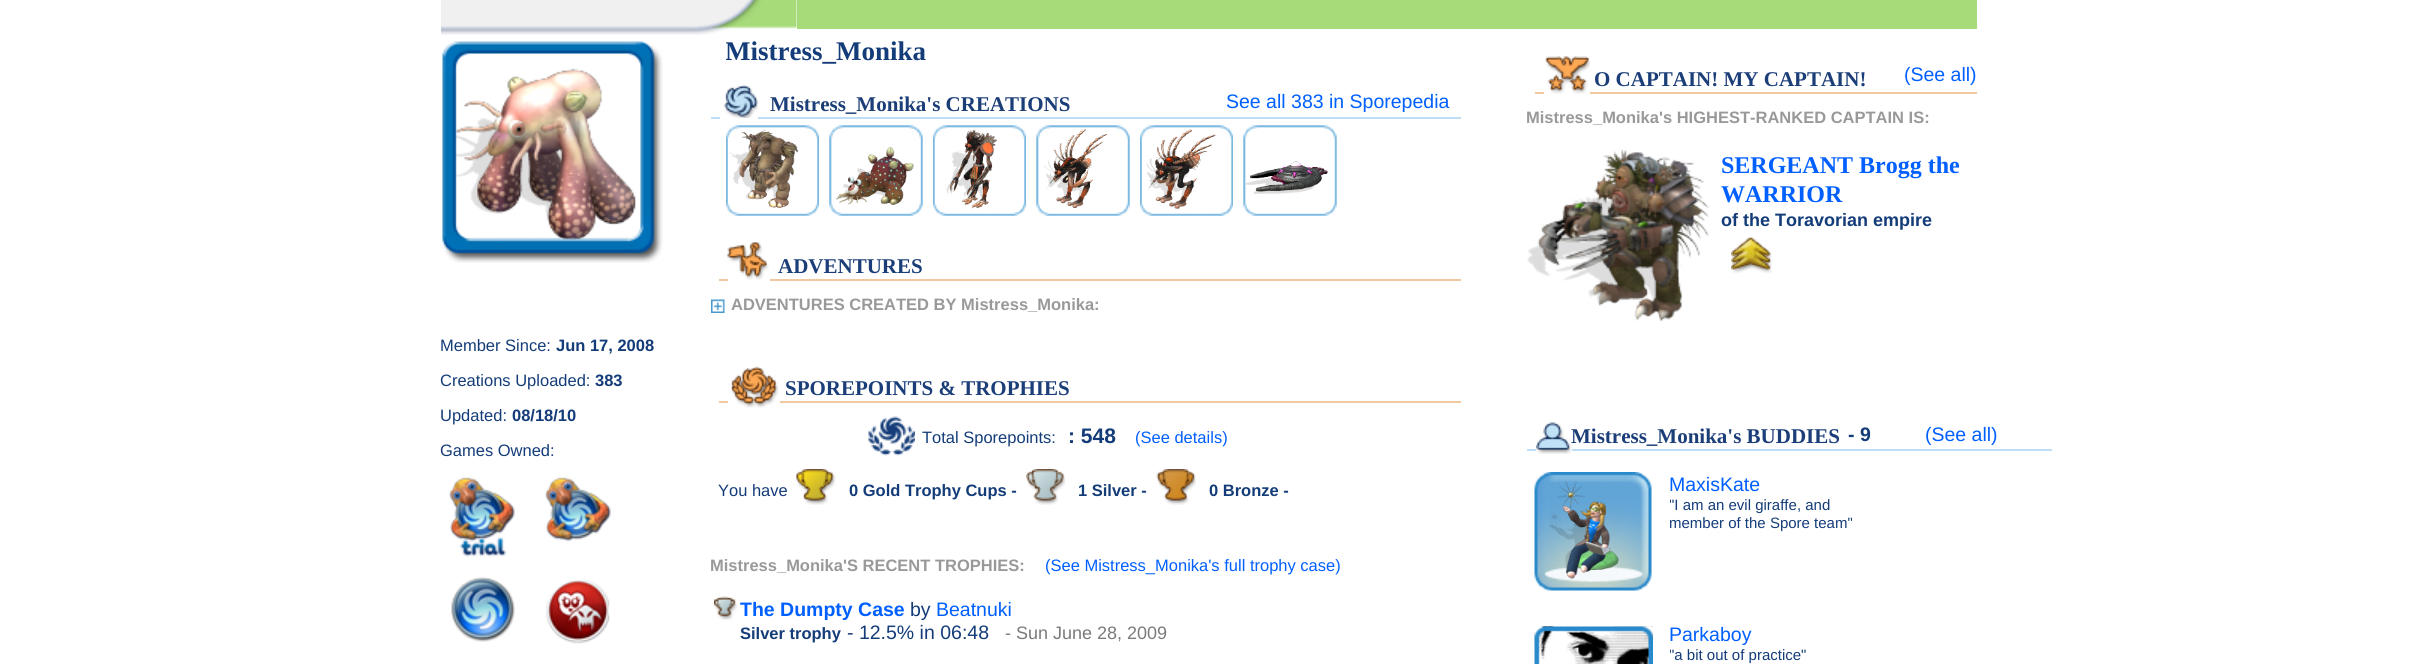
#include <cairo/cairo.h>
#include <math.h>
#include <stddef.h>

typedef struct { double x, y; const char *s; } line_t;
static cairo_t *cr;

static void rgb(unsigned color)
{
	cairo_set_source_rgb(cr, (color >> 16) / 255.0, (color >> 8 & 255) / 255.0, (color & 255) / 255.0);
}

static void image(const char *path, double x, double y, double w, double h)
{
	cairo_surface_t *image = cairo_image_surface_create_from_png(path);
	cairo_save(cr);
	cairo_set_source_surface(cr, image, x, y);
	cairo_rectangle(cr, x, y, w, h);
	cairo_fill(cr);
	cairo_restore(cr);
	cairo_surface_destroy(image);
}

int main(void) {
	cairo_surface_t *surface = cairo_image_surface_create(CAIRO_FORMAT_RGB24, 2416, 664);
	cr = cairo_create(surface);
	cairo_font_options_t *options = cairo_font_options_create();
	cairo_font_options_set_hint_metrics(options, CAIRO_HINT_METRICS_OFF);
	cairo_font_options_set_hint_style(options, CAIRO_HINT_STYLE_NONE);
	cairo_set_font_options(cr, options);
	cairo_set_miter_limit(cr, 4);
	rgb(0xffffff);
	cairo_paint(cr);
	image("img/1.png", 441, 0, 356, 35);
	rgb(0xa7da78);
	cairo_rectangle(cr, 797, 0, 1180, 29);
	cairo_fill(cr);
	image("img/3.png", 454, 68, 182, 172);
	image("img/2.png", 442, 41, 221, 222);
	image("img/4.png", 449, 477, 66, 80);
	image("img/5.png", 545, 477, 66, 65);
	image("img/6.png", 451, 577, 64, 65);
	image("img/7.png", 546, 579, 64, 65);
	rgb(0xbedef6);
	cairo_rectangle(cr, 711, 117, 750, 2);
	cairo_fill(cr);
	rgb(0xffffff);
	cairo_rectangle(cr, 720, 117, 38, 2);
	cairo_fill(cr);
	image("img/8.png", 724, 84, 34, 34);
	image("img/9.png", 726, 125, 93, 91);
	image("img/11.png", 729, 129, 70, 79);
	image("img/10.png", 727, 125, 92, 91);
	image("img/12.png", 829, 125, 94, 91);
	image("img/14.png", 836, 147, 78, 58);
	image("img/13.png", 829, 125, 94, 91);
	image("img/15.png", 933, 125, 93, 91);
	image("img/17.png", 946, 130, 51, 79);
	image("img/16.png", 934, 125, 92, 91);
	image("img/12.png", 1036, 125, 94, 91);
	image("img/19.png", 1044, 129, 64, 79);
	image("img/18.png", 1036, 125, 94, 91);
	image("img/20.png", 1140, 125, 93, 91);
	image("img/22.png", 1146, 129, 70, 80);
	image("img/21.png", 1141, 125, 92, 91);
	image("img/12.png", 1243, 125, 94, 91);
	image("img/24.png", 1245, 161, 83, 33);
	image("img/23.png", 1243, 125, 94, 91);
	rgb(0xf2c89e);
	cairo_rectangle(cr, 719, 279, 742, 2);
	cairo_fill(cr);
	rgb(0xffffff);
	cairo_rectangle(cr, 728, 279, 42, 2);
	cairo_fill(cr);
	image("img/25.png", 727, 242, 42, 38);
	image("img/26.png", 711, 299, 14, 14);
	rgb(0xf2c89e);
	cairo_rectangle(cr, 719, 401, 742, 2);
	cairo_fill(cr);
	rgb(0xffffff);
	cairo_rectangle(cr, 728, 401, 52, 2);
	cairo_fill(cr);
	image("img/27.png", 731, 366, 48, 42);
	image("img/28.png", 868, 416, 47, 40);
	image("img/29.png", 796, 469, 40, 36);
	image("img/30.png", 1026, 469, 39, 36);
	image("img/31.png", 1156, 469, 40, 36);
	image("img/32.png", 714, 596, 24, 24);
	rgb(0xf2c89e);
	cairo_rectangle(cr, 1535, 92, 442, 2);
	cairo_fill(cr);
	rgb(0xffffff);
	cairo_rectangle(cr, 1544, 92, 46, 2);
	cairo_fill(cr);
	image("img/33.png", 1544, 56, 46, 38);
	image("img/34.png", 1527, 149, 182, 172);
	image("img/35.png", 1731, 236, 41, 38);
	rgb(0xbedef6);
	cairo_rectangle(cr, 1527, 449, 525, 2);
	cairo_fill(cr);
	image("img/36.png", 1536, 422, 36, 32);
	image("img/37.png", 1534, 472, 118, 119);
	image("img/38.png", 1549, 481, 70, 98);
	image("img/39.png", 1534, 626, 119, 38);
	image("img/40.png", 1534, 626, 119, 38);
	cairo_select_font_face(cr, "Liberation Sans", CAIRO_FONT_SLANT_NORMAL, CAIRO_FONT_WEIGHT_NORMAL);
	cairo_set_font_size(cr, 16.5);
	rgb(0x143c79);
	cairo_move_to(cr, 440, 351);
	cairo_show_text(cr, "Member Since:");
	cairo_select_font_face(cr, "Liberation Sans", CAIRO_FONT_SLANT_NORMAL, CAIRO_FONT_WEIGHT_BOLD);
	cairo_move_to(cr, 556, 351);
	cairo_show_text(cr, "Jun 17, 2008");
	cairo_select_font_face(cr, "Liberation Sans", CAIRO_FONT_SLANT_NORMAL, CAIRO_FONT_WEIGHT_NORMAL);
	cairo_move_to(cr, 440, 386);
	cairo_show_text(cr, "Creations Uploaded:");
	cairo_select_font_face(cr, "Liberation Sans", CAIRO_FONT_SLANT_NORMAL, CAIRO_FONT_WEIGHT_BOLD);
	cairo_move_to(cr, 595, 386);
	cairo_show_text(cr, "383");
	cairo_select_font_face(cr, "Liberation Sans", CAIRO_FONT_SLANT_NORMAL, CAIRO_FONT_WEIGHT_NORMAL);
	cairo_move_to(cr, 440, 421);
	cairo_show_text(cr, "Updated:");
	cairo_select_font_face(cr, "Liberation Sans", CAIRO_FONT_SLANT_NORMAL, CAIRO_FONT_WEIGHT_BOLD);
	cairo_move_to(cr, 512, 421);
	cairo_show_text(cr, "08/18/10");
	cairo_select_font_face(cr, "Liberation Sans", CAIRO_FONT_SLANT_NORMAL, CAIRO_FONT_WEIGHT_NORMAL);
	cairo_move_to(cr, 440, 456);
	cairo_show_text(cr, "Games Owned:");
	cairo_save(cr);
	cairo_rectangle(cr, 726, 36, 600, 33);
	cairo_clip(cr);
	cairo_select_font_face(cr, "Liberation Serif", CAIRO_FONT_SLANT_NORMAL, CAIRO_FONT_WEIGHT_BOLD);
	cairo_set_font_size(cr, 27);
	cairo_move_to(cr, 725, 60);
	cairo_show_text(cr, "Mistress_Monika");
	cairo_restore(cr);
	cairo_select_font_face(cr, "Liberation Serif", CAIRO_FONT_SLANT_NORMAL, CAIRO_FONT_WEIGHT_BOLD);
	cairo_set_font_size(cr, 21);
	rgb(0x1b3e78);
	cairo_move_to(cr, 770, 111);
	cairo_show_text(cr, "Mistress_Monika's CREATIONS");
	cairo_select_font_face(cr, "Liberation Sans", CAIRO_FONT_SLANT_NORMAL, CAIRO_FONT_WEIGHT_NORMAL);
	cairo_set_font_size(cr, 19.5);
	rgb(0x005fff);
	cairo_move_to(cr, 1226, 108);
	cairo_show_text(cr, "See all 383 in Sporepedia");
	cairo_select_font_face(cr, "Liberation Serif", CAIRO_FONT_SLANT_NORMAL, CAIRO_FONT_WEIGHT_BOLD);
	cairo_set_font_size(cr, 21);
	rgb(0x1b3e78);
	cairo_move_to(cr, 778, 273);
	cairo_show_text(cr, "ADVENTURES");
	cairo_select_font_face(cr, "Liberation Sans", CAIRO_FONT_SLANT_NORMAL, CAIRO_FONT_WEIGHT_BOLD);
	cairo_set_font_size(cr, 16.5);
	rgb(0x999999);
	cairo_move_to(cr, 731, 310);
	cairo_show_text(cr, "ADVENTURES CREATED BY Mistress_Monika:");
	cairo_select_font_face(cr, "Liberation Serif", CAIRO_FONT_SLANT_NORMAL, CAIRO_FONT_WEIGHT_BOLD);
	cairo_set_font_size(cr, 21);
	rgb(0x1b3e78);
	cairo_move_to(cr, 785, 395);
	cairo_show_text(cr, "SPOREPOINTS & TROPHIES");
	cairo_select_font_face(cr, "Liberation Sans", CAIRO_FONT_SLANT_NORMAL, CAIRO_FONT_WEIGHT_NORMAL);
	cairo_set_font_size(cr, 16.5);
	rgb(0x143c79);
	cairo_move_to(cr, 922, 443);
	cairo_show_text(cr, "Total Sporepoints:");
	cairo_select_font_face(cr, "Liberation Sans", CAIRO_FONT_SLANT_NORMAL, CAIRO_FONT_WEIGHT_BOLD);
	cairo_set_font_size(cr, 21);
	cairo_move_to(cr, 1068, 443);
	cairo_show_text(cr, ": 548");
	cairo_select_font_face(cr, "Liberation Sans", CAIRO_FONT_SLANT_NORMAL, CAIRO_FONT_WEIGHT_NORMAL);
	cairo_set_font_size(cr, 16.5);
	rgb(0x005fff);
	cairo_move_to(cr, 1135, 443);
	cairo_show_text(cr, "(See details)");
	rgb(0x143c79);
	cairo_move_to(cr, 718, 496);
	cairo_show_text(cr, "You have");
	cairo_select_font_face(cr, "Liberation Sans", CAIRO_FONT_SLANT_NORMAL, CAIRO_FONT_WEIGHT_BOLD);
	{
		static const line_t items[] = {
			{849, 496, "0 Gold Trophy Cups -"},
			{1078, 496, "1 Silver -"},
			{1209, 496, "0 Bronze -"},
		};
		for (size_t i = 0; i < sizeof items / sizeof *items; i++) {
			cairo_move_to(cr, items[i].x, items[i].y);
			cairo_show_text(cr, items[i].s);
		}
	}
	rgb(0x999999);
	cairo_move_to(cr, 710, 571);
	cairo_show_text(cr, "Mistress_Monika'S RECENT TROPHIES:");
	cairo_select_font_face(cr, "Liberation Sans", CAIRO_FONT_SLANT_NORMAL, CAIRO_FONT_WEIGHT_NORMAL);
	rgb(0x005fff);
	cairo_move_to(cr, 1045, 571);
	cairo_show_text(cr, "(See Mistress_Monika's full trophy case)");
	cairo_select_font_face(cr, "Liberation Sans", CAIRO_FONT_SLANT_NORMAL, CAIRO_FONT_WEIGHT_BOLD);
	cairo_set_font_size(cr, 19.5);
	cairo_move_to(cr, 740, 616);
	cairo_show_text(cr, "The Dumpty Case");
	cairo_select_font_face(cr, "Liberation Sans", CAIRO_FONT_SLANT_NORMAL, CAIRO_FONT_WEIGHT_NORMAL);
	rgb(0x143c79);
	cairo_move_to(cr, 910, 616);
	cairo_show_text(cr, "by");
	rgb(0x005fff);
	cairo_move_to(cr, 936, 616);
	cairo_show_text(cr, "Beatnuki");
	cairo_select_font_face(cr, "Liberation Sans", CAIRO_FONT_SLANT_NORMAL, CAIRO_FONT_WEIGHT_BOLD);
	cairo_set_font_size(cr, 16.5);
	rgb(0x143c79);
	cairo_move_to(cr, 740, 639);
	cairo_show_text(cr, "Silver trophy");
	cairo_select_font_face(cr, "Liberation Sans", CAIRO_FONT_SLANT_NORMAL, CAIRO_FONT_WEIGHT_NORMAL);
	cairo_set_font_size(cr, 19.5);
	cairo_move_to(cr, 847, 639);
	cairo_show_text(cr, "- 12.5% in 06:48");
	cairo_set_font_size(cr, 18);
	rgb(0x7a7a7a);
	cairo_move_to(cr, 1005, 639);
	cairo_show_text(cr, "- Sun June 28, 2009");
	cairo_select_font_face(cr, "Liberation Serif", CAIRO_FONT_SLANT_NORMAL, CAIRO_FONT_WEIGHT_BOLD);
	cairo_set_font_size(cr, 21);
	rgb(0x1b3e78);
	cairo_move_to(cr, 1594, 86);
	cairo_show_text(cr, "O CAPTAIN! MY CAPTAIN!");
	cairo_select_font_face(cr, "Liberation Sans", CAIRO_FONT_SLANT_NORMAL, CAIRO_FONT_WEIGHT_NORMAL);
	cairo_set_font_size(cr, 19.5);
	rgb(0x005fff);
	cairo_move_to(cr, 1904, 81);
	cairo_show_text(cr, "(See all)");
	cairo_select_font_face(cr, "Liberation Sans", CAIRO_FONT_SLANT_NORMAL, CAIRO_FONT_WEIGHT_BOLD);
	cairo_set_font_size(cr, 16.5);
	rgb(0x999999);
	cairo_move_to(cr, 1526, 123);
	cairo_show_text(cr, "Mistress_Monika's HIGHEST-RANKED CAPTAIN IS:");
	cairo_select_font_face(cr, "Liberation Serif", CAIRO_FONT_SLANT_NORMAL, CAIRO_FONT_WEIGHT_BOLD);
	cairo_set_font_size(cr, 24);
	rgb(0x005fff);
	cairo_move_to(cr, 1721, 173);
	cairo_show_text(cr, "SERGEANT Brogg the");
	cairo_move_to(cr, 1721, 202);
	cairo_show_text(cr, "WARRIOR");
	cairo_select_font_face(cr, "Liberation Sans", CAIRO_FONT_SLANT_NORMAL, CAIRO_FONT_WEIGHT_BOLD);
	cairo_set_font_size(cr, 18);
	rgb(0x143c79);
	cairo_move_to(cr, 1721, 226);
	cairo_show_text(cr, "of the Toravorian empire");
	cairo_select_font_face(cr, "Liberation Serif", CAIRO_FONT_SLANT_NORMAL, CAIRO_FONT_WEIGHT_BOLD);
	cairo_set_font_size(cr, 21);
	rgb(0x1b3e78);
	cairo_move_to(cr, 1571, 443);
	cairo_show_text(cr, "Mistress_Monika's BUDDIES");
	cairo_select_font_face(cr, "Liberation Sans", CAIRO_FONT_SLANT_NORMAL, CAIRO_FONT_WEIGHT_BOLD);
	cairo_set_font_size(cr, 19.5);
	rgb(0x143c79);
	cairo_move_to(cr, 1848, 441);
	cairo_show_text(cr, "- 9");
	cairo_select_font_face(cr, "Liberation Sans", CAIRO_FONT_SLANT_NORMAL, CAIRO_FONT_WEIGHT_NORMAL);
	rgb(0x005fff);
	cairo_move_to(cr, 1925, 441);
	cairo_show_text(cr, "(See all)");
	cairo_move_to(cr, 1669, 491);
	cairo_show_text(cr, "MaxisKate");
	cairo_save(cr);
	cairo_rectangle(cr, 1670, 497, 187, 36);
	cairo_clip(cr);
	cairo_set_font_size(cr, 15);
	rgb(0x143c79);
	cairo_move_to(cr, 1669, 510);
	cairo_show_text(cr, "\"I am an evil giraffe, and");
	cairo_move_to(cr, 1669, 528);
	cairo_show_text(cr, "member of the Spore team\"");
	cairo_restore(cr);
	cairo_move_to(cr, 1669, 641);
	cairo_show_text(cr, "Parkaboy");
	cairo_save(cr);
	cairo_rectangle(cr, 1670, 647, 187, 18);
	cairo_clip(cr);
	cairo_set_font_size(cr, 15);
	rgb(0x143c79);
	cairo_move_to(cr, 1669, 660);
	cairo_show_text(cr, "\"a bit out of practice\"");
	cairo_restore(cr);
	cairo_surface_write_to_png(surface, "page.png");
	cairo_font_options_destroy(options);
	cairo_destroy(cr);
	cairo_surface_destroy(surface);
	return 0;
}
